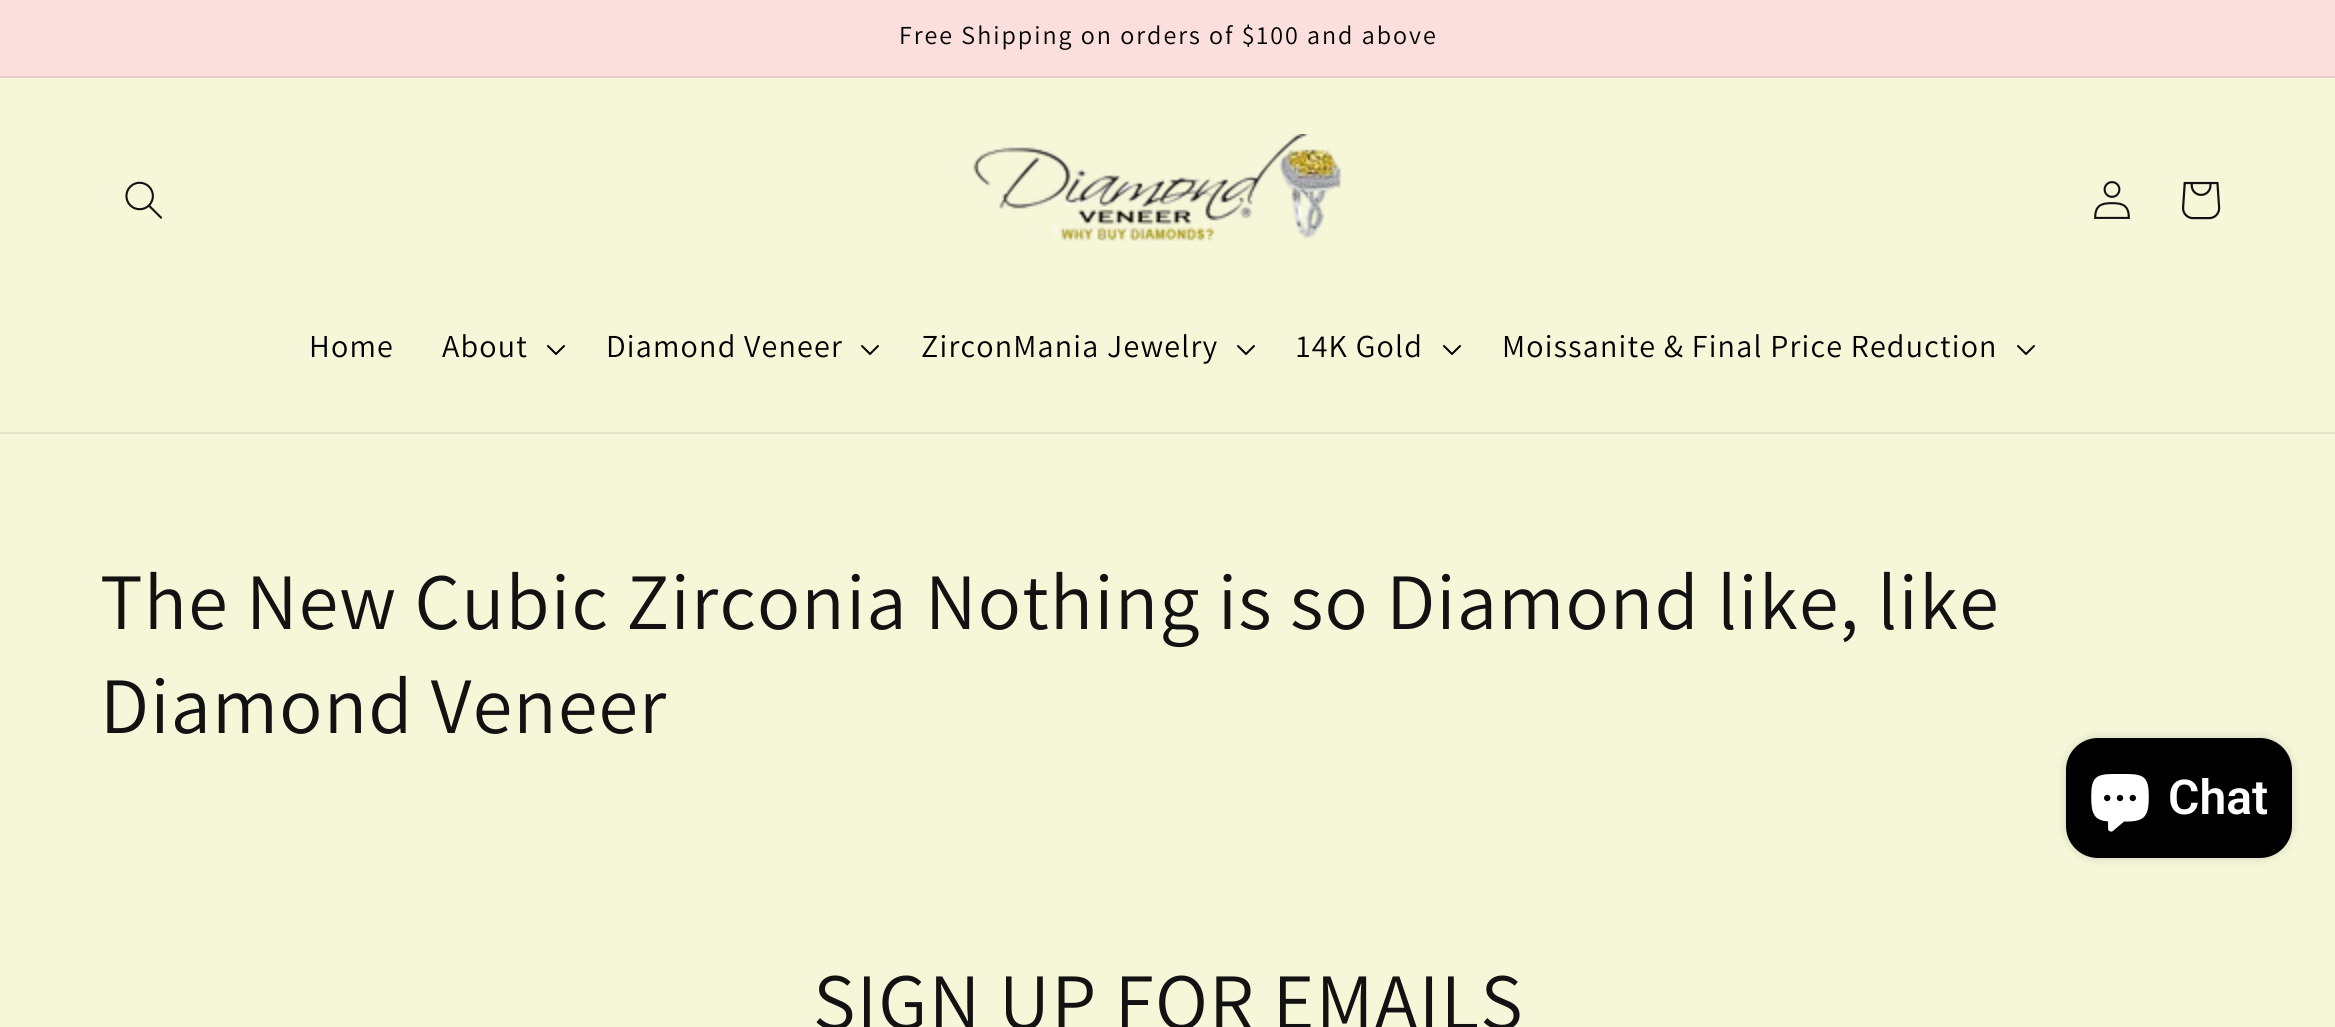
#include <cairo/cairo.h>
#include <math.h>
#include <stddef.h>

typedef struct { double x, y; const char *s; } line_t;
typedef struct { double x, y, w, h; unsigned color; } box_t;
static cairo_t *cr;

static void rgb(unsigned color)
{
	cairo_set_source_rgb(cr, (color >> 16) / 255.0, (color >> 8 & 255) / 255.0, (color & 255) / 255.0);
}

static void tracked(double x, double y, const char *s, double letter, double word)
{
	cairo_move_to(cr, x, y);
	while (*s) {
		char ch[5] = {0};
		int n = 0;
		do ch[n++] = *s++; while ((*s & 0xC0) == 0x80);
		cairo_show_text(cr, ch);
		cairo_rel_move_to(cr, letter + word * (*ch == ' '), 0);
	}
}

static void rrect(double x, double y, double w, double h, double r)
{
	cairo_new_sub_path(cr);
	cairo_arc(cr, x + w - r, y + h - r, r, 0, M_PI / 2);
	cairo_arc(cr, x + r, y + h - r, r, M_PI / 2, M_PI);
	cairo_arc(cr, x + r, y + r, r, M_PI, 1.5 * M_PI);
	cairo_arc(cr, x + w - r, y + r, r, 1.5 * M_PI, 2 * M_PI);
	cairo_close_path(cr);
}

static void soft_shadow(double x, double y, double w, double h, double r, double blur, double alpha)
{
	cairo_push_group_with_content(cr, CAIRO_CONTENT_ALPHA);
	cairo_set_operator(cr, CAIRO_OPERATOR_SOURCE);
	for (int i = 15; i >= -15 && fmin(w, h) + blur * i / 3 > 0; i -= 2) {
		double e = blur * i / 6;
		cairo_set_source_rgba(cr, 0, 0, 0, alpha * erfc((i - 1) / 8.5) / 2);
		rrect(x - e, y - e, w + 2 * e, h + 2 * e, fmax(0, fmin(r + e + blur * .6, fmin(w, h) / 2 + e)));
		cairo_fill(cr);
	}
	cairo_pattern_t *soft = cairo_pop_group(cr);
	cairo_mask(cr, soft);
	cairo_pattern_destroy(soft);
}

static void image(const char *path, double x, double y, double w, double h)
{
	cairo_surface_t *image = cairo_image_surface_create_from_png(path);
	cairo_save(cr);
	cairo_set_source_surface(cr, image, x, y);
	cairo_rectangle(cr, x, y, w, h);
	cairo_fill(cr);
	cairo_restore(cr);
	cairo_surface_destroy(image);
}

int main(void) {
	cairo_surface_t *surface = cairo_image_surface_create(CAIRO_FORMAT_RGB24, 2335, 1027);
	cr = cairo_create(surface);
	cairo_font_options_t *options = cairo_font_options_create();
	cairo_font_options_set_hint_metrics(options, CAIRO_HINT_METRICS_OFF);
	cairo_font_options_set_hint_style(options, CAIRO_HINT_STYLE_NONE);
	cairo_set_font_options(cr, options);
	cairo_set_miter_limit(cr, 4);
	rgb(0xf6f6d9);
	cairo_paint(cr);
	{
		static const box_t items[] = {
			{0, 0, 2335, 76, 0xfbdfdd},
			{0, 76, 2335, 2, 0xe7cdcb},
			{0, 432, 2335, 2, 0xe4e4c9},
		};
		for (size_t i = 0; i < sizeof items / sizeof *items; i++) {
			rgb(items[i].color);
			cairo_rectangle(cr, items[i].x, items[i].y, items[i].w, items[i].h);
			cairo_fill(cr);
		}
	}
	image("img/1.png", 125, 181, 37, 38);
	image("img/2.png", 973, 134, 369, 107);
	image("img/3.png", 2094, 181, 36, 38);
	image("img/4.png", 2182, 181, 39, 39);
	image("img/5.png", 547, 345, 18, 10);
	image("img/5.png", 861, 345, 18, 10);
	image("img/5.png", 1237, 345, 18, 10);
	image("img/5.png", 1443, 345, 18, 10);
	image("img/5.png", 2017, 345, 18, 10);
	rgb(0x000000);
	soft_shadow(2066, 738, 226, 120, 32, 5, 0.15);
	rgb(0x000000);
	rrect(2066, 738, 226, 120, 32);
	cairo_fill(cr);
	image("img/6.png", 2091, 774, 58, 58);
	cairo_select_font_face(cr, "Assistant", CAIRO_FONT_SLANT_NORMAL, CAIRO_FONT_WEIGHT_NORMAL);
	cairo_set_font_size(cr, 26);
	tracked(899, 44, "Free Shipping on orders of $100 and above", 2, 0);
	cairo_set_font_size(cr, 32);
	{
		static const line_t items[] = {
			{309, 357, "Home"},
			{442, 357, "About"},
			{606, 357, "Diamond Veneer"},
			{921, 357, "ZirconMania Jewelry"},
			{1296, 357, "14K Gold"},
			{1502, 357, "Moissanite & Final Price Reduction"},
		};
		for (size_t i = 0; i < sizeof items / sizeof *items; i++) {
			tracked(items[i].x, items[i].y, items[i].s, 1.2, 0);
		}
	}
	cairo_set_font_size(cr, 80);
	rgb(0x121212);
	tracked(100, 629, "The New Cubic Zirconia Nothing is so Diamond like, like", 1.2, 0);
	tracked(100, 733, "Diamond Veneer", 1.2, 0);
	cairo_select_font_face(cr, "Roboto SemiBold", CAIRO_FONT_SLANT_NORMAL, CAIRO_FONT_WEIGHT_NORMAL);
	cairo_set_font_size(cr, 48);
	rgb(0xffffff);
	cairo_move_to(cr, 2168, 814);
	cairo_show_text(cr, "Chat");
	cairo_select_font_face(cr, "Assistant", CAIRO_FONT_SLANT_NORMAL, CAIRO_FONT_WEIGHT_NORMAL);
	cairo_set_font_size(cr, 80);
	rgb(0x121212);
	tracked(813, 1029, "SIGN UP FOR EMAILS", 1.2, 0);
	cairo_surface_write_to_png(surface, "page.png");
	cairo_font_options_destroy(options);
	cairo_destroy(cr);
	cairo_surface_destroy(surface);
	return 0;
}
